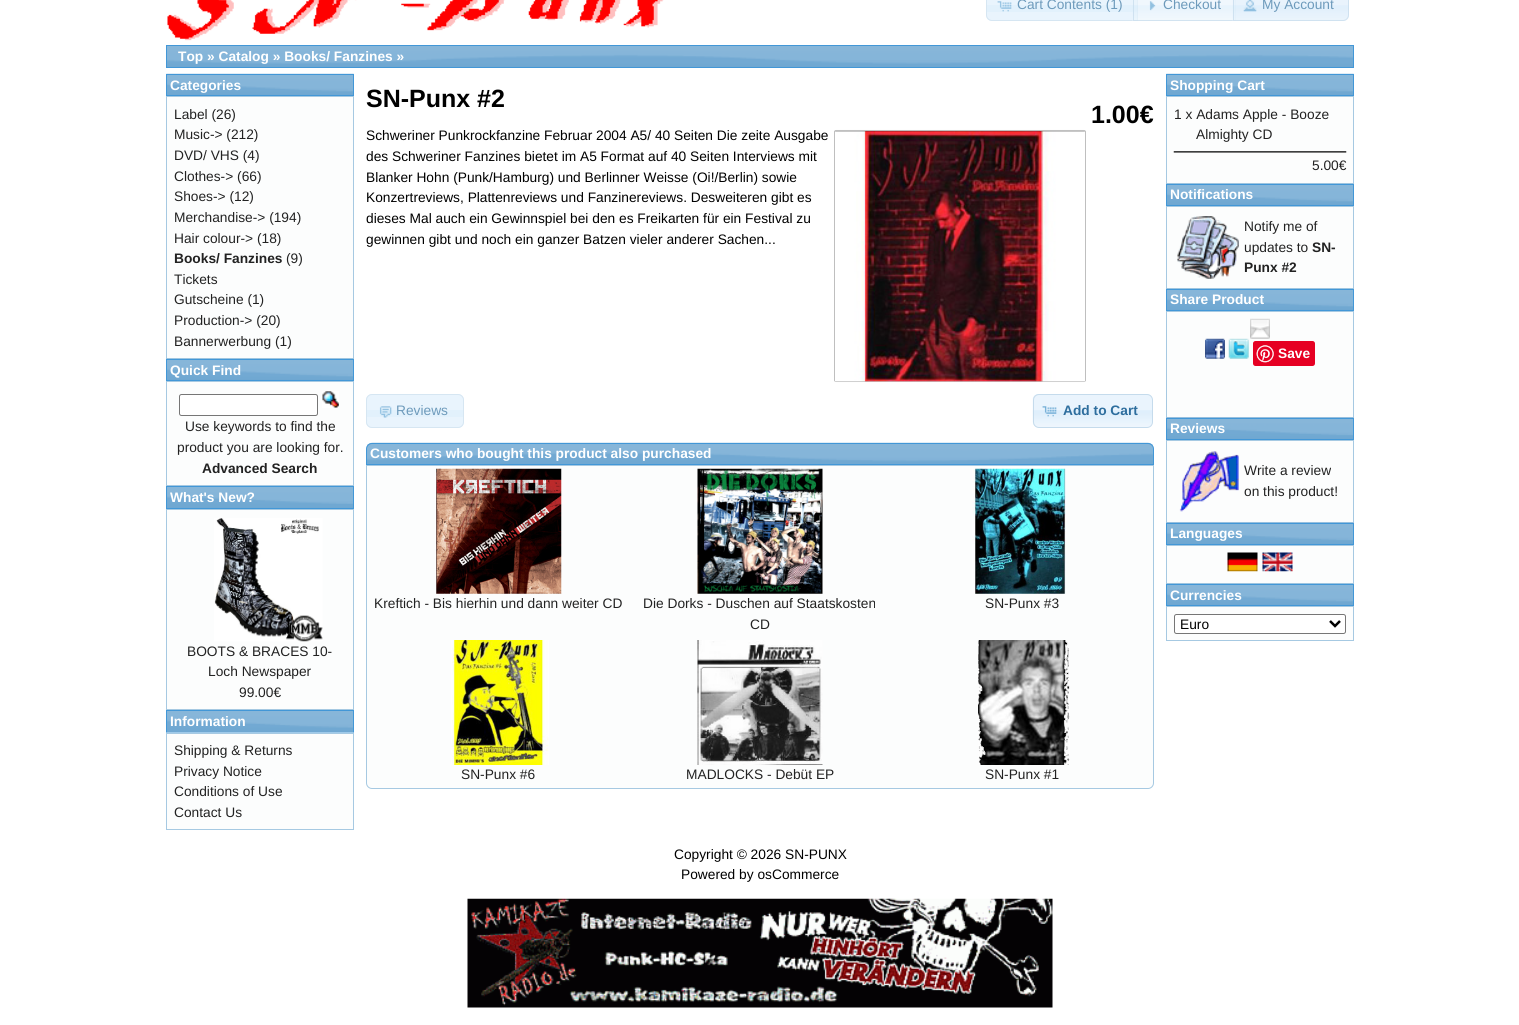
#include <cairo/cairo.h>
#include <math.h>
#include <stddef.h>

typedef struct { double x, y; const char *s; } line_t;
static cairo_t *cr;

static void rgb(unsigned color)
{
	cairo_set_source_rgb(cr, (color >> 16) / 255.0, (color >> 8 & 255) / 255.0, (color & 255) / 255.0);
}

static void rrect(double x, double y, double w, double h, double r)
{
	cairo_new_sub_path(cr);
	cairo_arc(cr, x + w - r, y + h - r, r, 0, M_PI / 2);
	cairo_arc(cr, x + r, y + h - r, r, M_PI / 2, M_PI);
	cairo_arc(cr, x + r, y + r, r, M_PI, 1.5 * M_PI);
	cairo_arc(cr, x + w - r, y + r, r, 1.5 * M_PI, 2 * M_PI);
	cairo_close_path(cr);
}

static void soft_shadow(double x, double y, double w, double h, double r, double blur, double alpha)
{
	cairo_push_group_with_content(cr, CAIRO_CONTENT_ALPHA);
	cairo_set_operator(cr, CAIRO_OPERATOR_SOURCE);
	for (int i = 15; i >= -15 && fmin(w, h) + blur * i / 3 > 0; i -= 2) {
		double e = blur * i / 6;
		cairo_set_source_rgba(cr, 0, 0, 0, alpha * erfc((i - 1) / 8.5) / 2);
		rrect(x - e, y - e, w + 2 * e, h + 2 * e, fmax(0, fmin(r + e + blur * .6, fmin(w, h) / 2 + e)));
		cairo_fill(cr);
	}
	cairo_pattern_t *soft = cairo_pop_group(cr);
	cairo_mask(cr, soft);
	cairo_pattern_destroy(soft);
}

static void image(const char *path, double x, double y, double w, double h)
{
	cairo_surface_t *image = cairo_image_surface_create_from_png(path);
	cairo_save(cr);
	cairo_set_source_surface(cr, image, x, y);
	cairo_rectangle(cr, x, y, w, h);
	cairo_fill(cr);
	cairo_restore(cr);
	cairo_surface_destroy(image);
}

int main(void) {
	cairo_surface_t *surface = cairo_image_surface_create(CAIRO_FORMAT_RGB24, 1519, 1025);
	cr = cairo_create(surface);
	cairo_font_options_t *options = cairo_font_options_create();
	cairo_font_options_set_hint_metrics(options, CAIRO_HINT_METRICS_OFF);
	cairo_font_options_set_hint_style(options, CAIRO_HINT_STYLE_NONE);
	cairo_set_font_options(cr, options);
	cairo_set_miter_limit(cr, 4);
	rgb(0xffffff);
	cairo_paint(cr);
	image("img/1.png", 167, 0, 497, 41);
	rgb(0xe9f4fd);
	cairo_new_path(cr);
	cairo_move_to(cr, 992, -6);
	cairo_line_to(cr, 1138, -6);
	cairo_line_to(cr, 1138, 21);
	cairo_line_to(cr, 992, 21);
	cairo_curve_to(cr, 988.5, 21, 986, 18.5, 986, 15);
	cairo_line_to(cr, 986, 0);
	cairo_curve_to(cr, 986, -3.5, 988.5, -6, 992, -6);
	cairo_close_path(cr);
	cairo_fill(cr);
	rgb(0xe2f1fc);
	cairo_rectangle(cr, 986, 5, 151, 7);
	cairo_fill(cr);
	cairo_new_path(cr);
	cairo_move_to(cr, 992, -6.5);
	cairo_line_to(cr, 1137.5, -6.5);
	cairo_line_to(cr, 1137.5, 20.5);
	cairo_line_to(cr, 992, 20.5);
	cairo_curve_to(cr, 989, 20.5, 986.5, 18, 986.5, 15);
	cairo_line_to(cr, 986.5, -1);
	cairo_curve_to(cr, 986.5, -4, 989, -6.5, 992, -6.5);
	cairo_close_path(cr);
	rgb(0xd6e6f2);
	cairo_set_line_width(cr, 1);
	cairo_stroke(cr);
	image("img/2.png", 997, 1, 15, 11);
	image("img/3.png", 1132, 0, 105, 21);
	cairo_rectangle(cr, 1133.5, -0.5, 102, 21);
	cairo_set_source_rgba(cr, 0.773, 0.859, 0.925, 0.7);
	cairo_stroke(cr);
	image("img/4.png", 1149, 1, 7, 10);
	cairo_set_source_rgba(cr, 0.875, 0.937, 0.988, 0.7);
	cairo_new_path(cr);
	cairo_move_to(cr, 1233, -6);
	cairo_line_to(cr, 1343, -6);
	cairo_curve_to(cr, 1346.5, -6, 1349, -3.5, 1349, 0);
	cairo_line_to(cr, 1349, 15);
	cairo_curve_to(cr, 1349, 18.5, 1346.5, 21, 1343, 21);
	cairo_line_to(cr, 1233, 21);
	cairo_close_path(cr);
	cairo_fill(cr);
	image("img/5.png", 1232, 0, 117, 21);
	cairo_new_path(cr);
	cairo_move_to(cr, 1233.5, -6.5);
	cairo_line_to(cr, 1343, -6.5);
	cairo_curve_to(cr, 1346, -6.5, 1348.5, -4, 1348.5, -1);
	cairo_line_to(cr, 1348.5, 15);
	cairo_curve_to(cr, 1348.5, 18, 1346, 20.5, 1343, 20.5);
	cairo_line_to(cr, 1233.5, 20.5);
	cairo_close_path(cr);
	cairo_set_source_rgba(cr, 0.773, 0.859, 0.925, 0.7);
	cairo_stroke(cr);
	image("img/6.png", 1243, 0, 14, 12);
	image("img/7.png", 167, 46, 1186, 21);
	cairo_rectangle(cr, 166.5, 45.5, 1187, 22);
	rgb(0x4297d7);
	cairo_stroke(cr);
	image("img/8.png", 166, 73, 188, 22);
	cairo_rectangle(cr, 166.5, 74.5, 187, 21);
	cairo_stroke(cr);
	rgb(0xfcfdfd);
	cairo_rectangle(cr, 166.5, 96.5, 187, 262);
	cairo_fill_preserve(cr);
	rgb(0xa6c9e2);
	cairo_stroke(cr);
	image("img/9.png", 166, 358, 188, 22);
	cairo_rectangle(cr, 166.5, 359.5, 187, 21);
	rgb(0x4297d7);
	cairo_stroke(cr);
	rgb(0xfcfdfd);
	cairo_rectangle(cr, 166.5, 381.5, 187, 104);
	cairo_fill_preserve(cr);
	rgb(0xa6c9e2);
	cairo_stroke(cr);
	rgb(0xffffff);
	rrect(179.5, 394.5, 138, 21, 2);
	cairo_fill_preserve(cr);
	rgb(0x767676);
	cairo_stroke(cr);
	image("img/10.png", 322, 391, 17, 17);
	image("img/11.png", 167, 487, 186, 21);
	cairo_rectangle(cr, 166.5, 486.5, 187, 22);
	rgb(0x4297d7);
	cairo_stroke(cr);
	rgb(0xfcfdfd);
	cairo_rectangle(cr, 166.5, 509.5, 187, 200);
	cairo_fill_preserve(cr);
	rgb(0xa6c9e2);
	cairo_stroke(cr);
	image("img/12.png", 214, 518, 109, 124);
	image("img/13.png", 167, 711, 186, 21);
	cairo_rectangle(cr, 166.5, 710.5, 187, 22);
	rgb(0x4297d7);
	cairo_stroke(cr);
	rgb(0xfcfdfd);
	cairo_rectangle(cr, 166.5, 733.5, 187, 96);
	cairo_fill_preserve(cr);
	rgb(0xa6c9e2);
	cairo_stroke(cr);
	image("img/14.png", 166, 732, 188, 1);
	rgb(0x000000);
	soft_shadow(835, 131, 250, 250, 0, 0.5, 1);
	image("img/15.png", 835, 131, 250, 251);
	rgb(0xe9f4fd);
	rrect(366, 394, 98, 34, 6);
	cairo_fill(cr);
	rgb(0xe2f1fc);
	cairo_rectangle(cr, 366, 410, 98, 7);
	cairo_fill(cr);
	rrect(366.5, 394.5, 97, 33, 5.5);
	rgb(0xd6e6f2);
	cairo_stroke(cr);
	image("img/16.png", 379, 406, 13, 12);
	image("img/17.png", 1032, 394, 120, 34);
	rrect(1033.5, 394.5, 119, 33, 5.5);
	rgb(0xc5dbec);
	cairo_stroke(cr);
	image("img/18.png", 1042, 406, 15, 11);
	image("img/19.png", 366, 442, 788, 22);
	cairo_new_path(cr);
	cairo_move_to(cr, 372, 443.5);
	cairo_line_to(cr, 1148, 443.5);
	cairo_curve_to(cr, 1151, 443.5, 1153.5, 446, 1153.5, 449);
	cairo_line_to(cr, 1153.5, 464.5);
	cairo_line_to(cr, 366.5, 464.5);
	cairo_line_to(cr, 366.5, 449);
	cairo_curve_to(cr, 366.5, 446, 369, 443.5, 372, 443.5);
	cairo_close_path(cr);
	rgb(0x4297d7);
	cairo_stroke(cr);
	rgb(0xfcfdfd);
	cairo_new_path(cr);
	cairo_move_to(cr, 366.5, 465.5);
	cairo_line_to(cr, 1153.5, 465.5);
	cairo_line_to(cr, 1153.5, 783);
	cairo_curve_to(cr, 1153.5, 786, 1151, 788.5, 1148, 788.5);
	cairo_line_to(cr, 372, 788.5);
	cairo_curve_to(cr, 369, 788.5, 366.5, 786, 366.5, 783);
	cairo_close_path(cr);
	cairo_fill_preserve(cr);
	rgb(0xa6c9e2);
	cairo_stroke(cr);
	image("img/20.png", 436, 468, 126, 126);
	image("img/21.png", 697, 468, 126, 126);
	image("img/22.png", 972, 468, 94, 126);
	image("img/23.png", 451, 640, 98, 125);
	image("img/24.png", 697, 640, 126, 125);
	image("img/25.png", 978, 640, 92, 125);
	image("img/8.png", 1166, 73, 188, 22);
	cairo_rectangle(cr, 1166.5, 74.5, 187, 21);
	rgb(0x4297d7);
	cairo_stroke(cr);
	rgb(0xfcfdfd);
	cairo_rectangle(cr, 1166.5, 96.5, 187, 87);
	cairo_fill_preserve(cr);
	rgb(0xa6c9e2);
	cairo_stroke(cr);
	image("img/26.png", 1173, 151, 174, 2);
	image("img/9.png", 1166, 183, 188, 22);
	cairo_rectangle(cr, 1166.5, 184.5, 187, 21);
	rgb(0x4297d7);
	cairo_stroke(cr);
	rgb(0xfcfdfd);
	cairo_rectangle(cr, 1166.5, 206.5, 187, 82);
	cairo_fill_preserve(cr);
	rgb(0xa6c9e2);
	cairo_stroke(cr);
	image("img/27.png", 1177, 216, 62, 63);
	image("img/9.png", 1166, 288, 188, 22);
	cairo_rectangle(cr, 1166.5, 289.5, 187, 21);
	rgb(0x4297d7);
	cairo_stroke(cr);
	rgb(0xfcfdfd);
	cairo_rectangle(cr, 1166.5, 311.5, 187, 106);
	cairo_fill_preserve(cr);
	rgb(0xa6c9e2);
	cairo_stroke(cr);
	image("img/28.png", 1250, 318, 20, 21);
	image("img/29.png", 1205, 338, 20, 21);
	image("img/30.png", 1228, 338, 21, 21);
	rgb(0xe60023);
	rrect(1253, 341, 62, 25, 2.5);
	cairo_fill(cr);
	image("img/31.png", 1256, 345, 18, 18);
	image("img/32.png", 1166, 417, 188, 22);
	cairo_rectangle(cr, 1166.5, 418.5, 187, 21);
	rgb(0x4297d7);
	cairo_stroke(cr);
	rgb(0xfcfdfd);
	cairo_rectangle(cr, 1166.5, 440.5, 187, 82);
	cairo_fill_preserve(cr);
	rgb(0xa6c9e2);
	cairo_stroke(cr);
	image("img/33.png", 1179, 451, 60, 61);
	image("img/32.png", 1166, 522, 188, 22);
	cairo_rectangle(cr, 1166.5, 523.5, 187, 21);
	rgb(0x4297d7);
	cairo_stroke(cr);
	rgb(0xfcfdfd);
	cairo_rectangle(cr, 1166.5, 545.5, 187, 38);
	cairo_fill_preserve(cr);
	rgb(0xa6c9e2);
	cairo_stroke(cr);
	image("img/34.png", 1227, 552, 31, 20);
	image("img/35.png", 1262, 552, 31, 20);
	image("img/9.png", 1166, 583, 188, 22);
	cairo_rectangle(cr, 1166.5, 584.5, 187, 21);
	rgb(0x4297d7);
	cairo_stroke(cr);
	rgb(0xfcfdfd);
	cairo_rectangle(cr, 1166.5, 606.5, 187, 34);
	cairo_fill_preserve(cr);
	rgb(0xa6c9e2);
	cairo_stroke(cr);
	rgb(0xffffff);
	rrect(1174.5, 614.5, 171, 19, 2);
	cairo_fill_preserve(cr);
	rgb(0x767676);
	cairo_stroke(cr);
	cairo_new_path(cr);
	cairo_move_to(cr, 1330, 621);
	cairo_line_to(cr, 1335, 626);
	cairo_line_to(cr, 1340, 621);
	rgb(0x000000);
	cairo_set_line_width(cr, 2.5);
	cairo_stroke(cr);
	image("img/36.png", 467, 898, 586, 110);
	cairo_select_font_face(cr, "Liberation Sans", CAIRO_FONT_SLANT_NORMAL, CAIRO_FONT_WEIGHT_NORMAL);
	cairo_set_font_size(cr, 13.75);
	rgb(0x6d9abb);
	{
		static const line_t items[] = {
			{1017, 9, "Cart Contents (1)"},
			{1163, 9, "Checkout"},
			{1262, 9, "My Account"},
		};
		for (size_t i = 0; i < sizeof items / sizeof *items; i++) {
			cairo_move_to(cr, items[i].x, items[i].y);
			cairo_show_text(cr, items[i].s);
		}
	}
	cairo_select_font_face(cr, "Liberation Sans", CAIRO_FONT_SLANT_NORMAL, CAIRO_FONT_WEIGHT_BOLD);
	rgb(0xffffff);
	cairo_move_to(cr, 178, 61);
	cairo_show_text(cr, "Top » Catalog » Books/ Fanzines »");
	cairo_move_to(cr, 170, 90);
	cairo_show_text(cr, "Categories");
	cairo_select_font_face(cr, "Liberation Sans", CAIRO_FONT_SLANT_NORMAL, CAIRO_FONT_WEIGHT_NORMAL);
	rgb(0x222222);
	{
		static const line_t items[] = {
			{174, 119, "Label (26)"},
			{174, 139, "Music-> (212)"},
			{174, 160, "DVD/ VHS (4)"},
			{174, 181, "Clothes-> (66)"},
			{174, 201, "Shoes-> (12)"},
			{174, 222, "Merchandise-> (194)"},
			{174, 243, "Hair colour-> (18)"},
		};
		for (size_t i = 0; i < sizeof items / sizeof *items; i++) {
			cairo_move_to(cr, items[i].x, items[i].y);
			cairo_show_text(cr, items[i].s);
		}
	}
	cairo_select_font_face(cr, "Liberation Sans", CAIRO_FONT_SLANT_NORMAL, CAIRO_FONT_WEIGHT_BOLD);
	cairo_move_to(cr, 174, 263);
	cairo_show_text(cr, "Books/ Fanzines");
	cairo_select_font_face(cr, "Liberation Sans", CAIRO_FONT_SLANT_NORMAL, CAIRO_FONT_WEIGHT_NORMAL);
	{
		static const line_t items[] = {
			{286, 263, "(9)"},
			{174, 284, "Tickets"},
			{174, 304, "Gutscheine (1)"},
			{174, 325, "Production-> (20)"},
			{174, 346, "Bannerwerbung (1)"},
		};
		for (size_t i = 0; i < sizeof items / sizeof *items; i++) {
			cairo_move_to(cr, items[i].x, items[i].y);
			cairo_show_text(cr, items[i].s);
		}
	}
	cairo_select_font_face(cr, "Liberation Sans", CAIRO_FONT_SLANT_NORMAL, CAIRO_FONT_WEIGHT_BOLD);
	rgb(0xffffff);
	cairo_move_to(cr, 170, 375);
	cairo_show_text(cr, "Quick Find");
	cairo_select_font_face(cr, "Liberation Sans", CAIRO_FONT_SLANT_NORMAL, CAIRO_FONT_WEIGHT_NORMAL);
	rgb(0x222222);
	cairo_move_to(cr, 185, 431);
	cairo_show_text(cr, "Use keywords to find the");
	cairo_move_to(cr, 177, 452);
	cairo_show_text(cr, "product you are looking for.");
	cairo_select_font_face(cr, "Liberation Sans", CAIRO_FONT_SLANT_NORMAL, CAIRO_FONT_WEIGHT_BOLD);
	cairo_move_to(cr, 202, 473);
	cairo_show_text(cr, "Advanced Search");
	rgb(0xffffff);
	cairo_move_to(cr, 170, 502);
	cairo_show_text(cr, "What's New?");
	cairo_select_font_face(cr, "Liberation Sans", CAIRO_FONT_SLANT_NORMAL, CAIRO_FONT_WEIGHT_NORMAL);
	rgb(0x222222);
	{
		static const line_t items[] = {
			{187, 656, "BOOTS & BRACES 10-"},
			{208, 676, "Loch Newspaper"},
			{239, 697, "99.00€"},
		};
		for (size_t i = 0; i < sizeof items / sizeof *items; i++) {
			cairo_move_to(cr, items[i].x, items[i].y);
			cairo_show_text(cr, items[i].s);
		}
	}
	cairo_select_font_face(cr, "Liberation Sans", CAIRO_FONT_SLANT_NORMAL, CAIRO_FONT_WEIGHT_BOLD);
	rgb(0xffffff);
	cairo_move_to(cr, 170, 726);
	cairo_show_text(cr, "Information");
	cairo_select_font_face(cr, "Liberation Sans", CAIRO_FONT_SLANT_NORMAL, CAIRO_FONT_WEIGHT_NORMAL);
	rgb(0x222222);
	{
		static const line_t items[] = {
			{174, 755, "Shipping & Returns"},
			{174, 776, "Privacy Notice"},
			{174, 796, "Conditions of Use"},
			{174, 817, "Contact Us"},
		};
		for (size_t i = 0; i < sizeof items / sizeof *items; i++) {
			cairo_move_to(cr, items[i].x, items[i].y);
			cairo_show_text(cr, items[i].s);
		}
	}
	cairo_select_font_face(cr, "Liberation Sans", CAIRO_FONT_SLANT_NORMAL, CAIRO_FONT_WEIGHT_BOLD);
	cairo_set_font_size(cr, 25);
	rgb(0x000000);
	cairo_move_to(cr, 366, 107);
	cairo_show_text(cr, "SN-Punx #2");
	cairo_move_to(cr, 1091, 123);
	cairo_show_text(cr, "1.00€");
	cairo_select_font_face(cr, "Liberation Sans", CAIRO_FONT_SLANT_NORMAL, CAIRO_FONT_WEIGHT_NORMAL);
	cairo_set_font_size(cr, 13.75);
	{
		static const line_t items[] = {
			{366, 140, "Schweriner Punkrockfanzine Februar 2004 A5/ 40 Seiten Die zeite Ausgabe"},
			{366, 161, "des Schweriner Fanzines bietet im A5 Format auf 40 Seiten Interviews mit"},
			{366, 182, "Blanker Hohn (Punk/Hamburg) und Berlinner Weisse (Oi!/Berlin) sowie"},
			{366, 202, "Konzertreviews, Plattenreviews und Fanzinereviews. Desweiteren gibt es"},
			{366, 223, "dieses Mal auch ein Gewinnspiel bei den es Freikarten für ein Festival zu"},
			{366, 244, "gewinnen gibt und noch ein ganzer Batzen vieler anderer Sachen..."},
		};
		for (size_t i = 0; i < sizeof items / sizeof *items; i++) {
			cairo_move_to(cr, items[i].x, items[i].y);
			cairo_show_text(cr, items[i].s);
		}
	}
	rgb(0x6d9abb);
	cairo_move_to(cr, 396, 415);
	cairo_show_text(cr, "Reviews");
	cairo_select_font_face(cr, "Liberation Sans", CAIRO_FONT_SLANT_NORMAL, CAIRO_FONT_WEIGHT_BOLD);
	rgb(0x2e6e9e);
	cairo_move_to(cr, 1063, 415);
	cairo_show_text(cr, "Add to Cart");
	rgb(0xffffff);
	cairo_move_to(cr, 370, 458);
	cairo_show_text(cr, "Customers who bought this product also purchased");
	cairo_select_font_face(cr, "Liberation Sans", CAIRO_FONT_SLANT_NORMAL, CAIRO_FONT_WEIGHT_NORMAL);
	rgb(0x222222);
	{
		static const line_t items[] = {
			{374, 608, "Kreftich - Bis hierhin und dann weiter CD"},
			{643, 608, "Die Dorks - Duschen auf Staatskosten"},
			{750, 629, "CD"},
			{985, 608, "SN-Punx #3"},
			{461, 779, "SN-Punx #6"},
			{686, 779, "MADLOCKS - Debüt EP"},
			{985, 779, "SN-Punx #1"},
		};
		for (size_t i = 0; i < sizeof items / sizeof *items; i++) {
			cairo_move_to(cr, items[i].x, items[i].y);
			cairo_show_text(cr, items[i].s);
		}
	}
	cairo_select_font_face(cr, "Liberation Sans", CAIRO_FONT_SLANT_NORMAL, CAIRO_FONT_WEIGHT_BOLD);
	rgb(0xffffff);
	cairo_move_to(cr, 1170, 90);
	cairo_show_text(cr, "Shopping Cart");
	cairo_select_font_face(cr, "Liberation Sans", CAIRO_FONT_SLANT_NORMAL, CAIRO_FONT_WEIGHT_NORMAL);
	rgb(0x222222);
	{
		static const line_t items[] = {
			{1174, 119, "1 x Adams Apple - Booze"},
			{1196, 139, "Almighty CD"},
			{1312, 170, "5.00€"},
		};
		for (size_t i = 0; i < sizeof items / sizeof *items; i++) {
			cairo_move_to(cr, items[i].x, items[i].y);
			cairo_show_text(cr, items[i].s);
		}
	}
	cairo_select_font_face(cr, "Liberation Sans", CAIRO_FONT_SLANT_NORMAL, CAIRO_FONT_WEIGHT_BOLD);
	rgb(0xffffff);
	cairo_move_to(cr, 1170, 199);
	cairo_show_text(cr, "Notifications");
	cairo_select_font_face(cr, "Liberation Sans", CAIRO_FONT_SLANT_NORMAL, CAIRO_FONT_WEIGHT_NORMAL);
	rgb(0x222222);
	cairo_move_to(cr, 1244, 231);
	cairo_show_text(cr, "Notify me of");
	cairo_move_to(cr, 1244, 252);
	cairo_show_text(cr, "updates to");
	cairo_select_font_face(cr, "Liberation Sans", CAIRO_FONT_SLANT_NORMAL, CAIRO_FONT_WEIGHT_BOLD);
	cairo_move_to(cr, 1312, 252);
	cairo_show_text(cr, "SN-");
	cairo_move_to(cr, 1244, 272);
	cairo_show_text(cr, "Punx #2");
	rgb(0xffffff);
	{
		static const line_t items[] = {
			{1170, 304, "Share Product"},
			{1278, 358, "Save"},
			{1170, 433, "Reviews"},
		};
		for (size_t i = 0; i < sizeof items / sizeof *items; i++) {
			cairo_move_to(cr, items[i].x, items[i].y);
			cairo_show_text(cr, items[i].s);
		}
	}
	cairo_select_font_face(cr, "Liberation Sans", CAIRO_FONT_SLANT_NORMAL, CAIRO_FONT_WEIGHT_NORMAL);
	rgb(0x222222);
	cairo_move_to(cr, 1244, 475);
	cairo_show_text(cr, "Write a review");
	cairo_move_to(cr, 1244, 496);
	cairo_show_text(cr, "on this product!");
	cairo_select_font_face(cr, "Liberation Sans", CAIRO_FONT_SLANT_NORMAL, CAIRO_FONT_WEIGHT_BOLD);
	rgb(0xffffff);
	cairo_move_to(cr, 1170, 538);
	cairo_show_text(cr, "Languages");
	cairo_move_to(cr, 1170, 600);
	cairo_show_text(cr, "Currencies");
	cairo_select_font_face(cr, "Liberation Sans", CAIRO_FONT_SLANT_NORMAL, CAIRO_FONT_WEIGHT_NORMAL);
	rgb(0x000000);
	{
		static const line_t items[] = {
			{1180, 629, "Euro"},
			{674, 859, "Copyright © 2026 SN-PUNX"},
			{681, 879, "Powered by osCommerce"},
		};
		for (size_t i = 0; i < sizeof items / sizeof *items; i++) {
			cairo_move_to(cr, items[i].x, items[i].y);
			cairo_show_text(cr, items[i].s);
		}
	}
	cairo_surface_write_to_png(surface, "page.png");
	cairo_font_options_destroy(options);
	cairo_destroy(cr);
	cairo_surface_destroy(surface);
	return 0;
}
